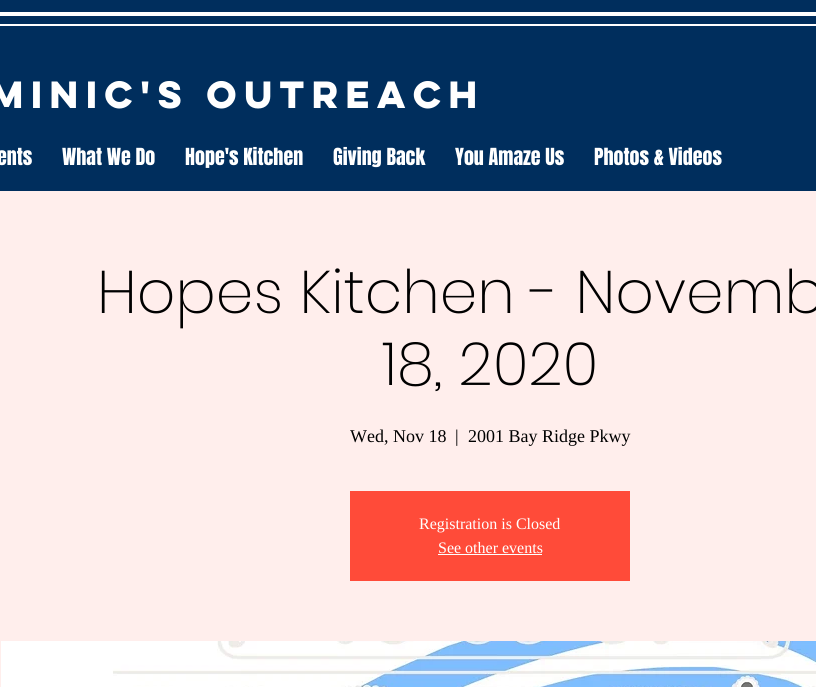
#include <cairo/cairo.h>
#include <math.h>
#include <stddef.h>

typedef struct { double x, y; const char *s; } line_t;
typedef struct { double x, y, w, h; unsigned color; } box_t;
static cairo_t *cr;

static void rgb(unsigned color)
{
	cairo_set_source_rgb(cr, (color >> 16) / 255.0, (color >> 8 & 255) / 255.0, (color & 255) / 255.0);
}

static void image(const char *path, double x, double y, double w, double h)
{
	cairo_surface_t *image = cairo_image_surface_create_from_png(path);
	cairo_save(cr);
	cairo_set_source_surface(cr, image, x, y);
	cairo_rectangle(cr, x, y, w, h);
	cairo_fill(cr);
	cairo_restore(cr);
	cairo_surface_destroy(image);
}

int main(void) {
	cairo_surface_t *surface = cairo_image_surface_create(CAIRO_FORMAT_RGB24, 816, 687);
	cr = cairo_create(surface);
	cairo_font_options_t *options = cairo_font_options_create();
	cairo_font_options_set_hint_metrics(options, CAIRO_HINT_METRICS_OFF);
	cairo_font_options_set_hint_style(options, CAIRO_HINT_STYLE_NONE);
	cairo_set_font_options(cr, options);
	cairo_set_miter_limit(cr, 4);
	rgb(0xffeeec);
	cairo_paint(cr);
	{
		static const box_t items[] = {
			{0, 0, 816, 191, 0x002e5d},
			{0, 12, 816, 4, 0xffffff},
			{0, 24, 816, 2, 0xffffff},
			{350, 491, 280, 90, 0xff4b39},
			{438, 554, 104, 1, 0xffffff},
		};
		for (size_t i = 0; i < sizeof items / sizeof *items; i++) {
			rgb(items[i].color);
			cairo_rectangle(cr, items[i].x, items[i].y, items[i].w, items[i].h);
			cairo_fill(cr);
		}
	}
	image("img/1.png", 1, 641, 815, 46);
	cairo_select_font_face(cr, "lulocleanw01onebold", CAIRO_FONT_SLANT_NORMAL, CAIRO_FONT_WEIGHT_BOLD);
	cairo_set_font_size(cr, 34);
	cairo_move_to(cr, -10, 108);
	cairo_show_text(cr, "minic's Outreach");
	cairo_select_font_face(cr, "Anton", CAIRO_FONT_SLANT_NORMAL, CAIRO_FONT_WEIGHT_NORMAL);
	cairo_set_font_size(cr, 20);
	{
		static const line_t items[] = {
			{-3, 165, "ents"},
			{62, 165, "What We Do"},
			{185, 165, "Hope's Kitchen"},
			{333, 165, "Giving Back"},
			{455, 165, "You Amaze Us"},
			{594, 165, "Photos & Videos"},
		};
		for (size_t i = 0; i < sizeof items / sizeof *items; i++) {
			cairo_move_to(cr, items[i].x, items[i].y);
			cairo_show_text(cr, items[i].s);
		}
	}
	cairo_select_font_face(cr, "Poppins ExtraLight", CAIRO_FONT_SLANT_NORMAL, CAIRO_FONT_WEIGHT_NORMAL);
	cairo_set_font_size(cr, 60);
	rgb(0x000000);
	cairo_move_to(cr, 97, 313);
	cairo_show_text(cr, "Hopes Kitchen - Novemb");
	cairo_move_to(cr, 382, 385);
	cairo_show_text(cr, "18, 2020");
	cairo_select_font_face(cr, "Liberation Serif", CAIRO_FONT_SLANT_NORMAL, CAIRO_FONT_WEIGHT_NORMAL);
	cairo_set_font_size(cr, 18);
	{
		static const line_t items[] = {
			{350, 442, "Wed, Nov 18"},
			{455, 442, "|"},
			{468, 442, "2001 Bay Ridge Pkwy"},
		};
		for (size_t i = 0; i < sizeof items / sizeof *items; i++) {
			cairo_move_to(cr, items[i].x, items[i].y);
			cairo_show_text(cr, items[i].s);
		}
	}
	cairo_set_font_size(cr, 16);
	rgb(0xffffff);
	cairo_move_to(cr, 419, 529);
	cairo_show_text(cr, "Registration is Closed");
	cairo_move_to(cr, 438, 553);
	cairo_show_text(cr, "See other events");
	cairo_surface_write_to_png(surface, "page.png");
	cairo_font_options_destroy(options);
	cairo_destroy(cr);
	cairo_surface_destroy(surface);
	return 0;
}
